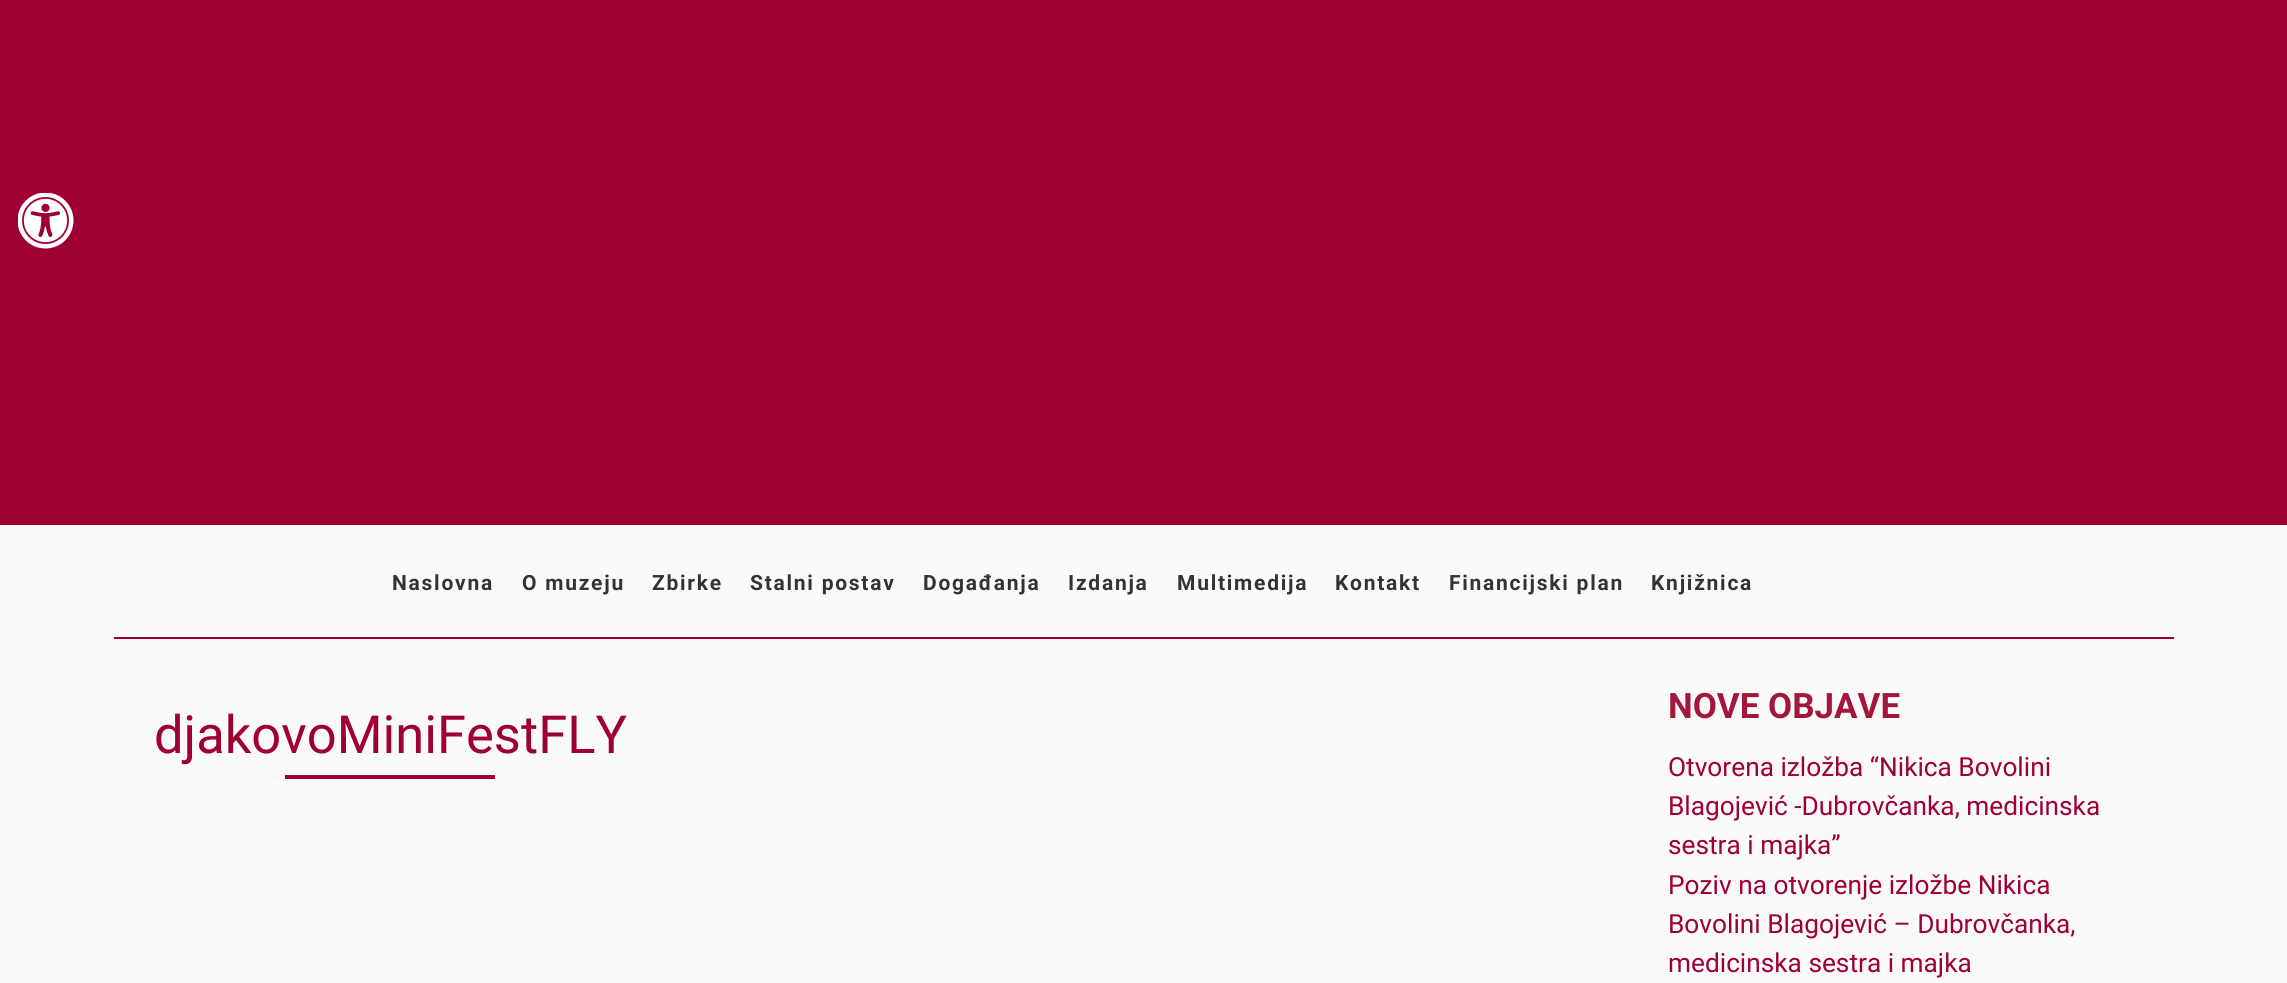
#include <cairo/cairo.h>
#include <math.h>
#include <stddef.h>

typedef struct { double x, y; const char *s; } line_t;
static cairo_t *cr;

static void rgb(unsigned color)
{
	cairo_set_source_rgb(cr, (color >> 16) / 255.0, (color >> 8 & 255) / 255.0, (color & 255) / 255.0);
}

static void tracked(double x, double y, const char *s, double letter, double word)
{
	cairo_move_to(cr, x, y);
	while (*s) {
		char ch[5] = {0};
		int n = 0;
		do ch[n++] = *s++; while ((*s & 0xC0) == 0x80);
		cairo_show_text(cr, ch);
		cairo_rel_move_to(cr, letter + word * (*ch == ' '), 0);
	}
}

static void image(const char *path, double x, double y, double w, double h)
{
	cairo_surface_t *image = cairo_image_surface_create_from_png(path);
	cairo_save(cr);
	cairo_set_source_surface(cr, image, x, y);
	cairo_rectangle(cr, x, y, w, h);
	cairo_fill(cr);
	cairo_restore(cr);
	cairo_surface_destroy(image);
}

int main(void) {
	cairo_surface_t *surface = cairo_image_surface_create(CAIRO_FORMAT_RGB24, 2287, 983);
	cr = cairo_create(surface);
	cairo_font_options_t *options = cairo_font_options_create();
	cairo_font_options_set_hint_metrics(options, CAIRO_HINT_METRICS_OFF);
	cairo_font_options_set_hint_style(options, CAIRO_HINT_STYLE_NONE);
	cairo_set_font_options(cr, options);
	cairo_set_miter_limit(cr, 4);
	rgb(0xfafafa);
	cairo_paint(cr);
	rgb(0x9e0032);
	cairo_rectangle(cr, 0, 0, 2287, 525);
	cairo_fill(cr);
	image("img/1.png", 18, 193, 56, 56);
	cairo_rectangle(cr, 114, 637, 2060, 2);
	cairo_fill(cr);
	cairo_rectangle(cr, 285, 775, 210, 4);
	cairo_fill(cr);
	cairo_select_font_face(cr, "Roboto", CAIRO_FONT_SLANT_NORMAL, CAIRO_FONT_WEIGHT_BOLD);
	cairo_set_font_size(cr, 21);
	rgb(0x333333);
	{
		static const line_t items[] = {
			{392, 590, "Naslovna"},
			{522, 590, "O muzeju"},
			{652, 590, "Zbirke"},
			{750, 590, "Stalni postav"},
			{923, 590, "Događanja"},
			{1068, 590, "Izdanja"},
			{1177, 590, "Multimedija"},
			{1335, 590, "Kontakt"},
			{1449, 590, "Financijski plan"},
			{1651, 590, "Knjižnica"},
		};
		for (size_t i = 0; i < sizeof items / sizeof *items; i++) {
			tracked(items[i].x, items[i].y, items[i].s, 1.75, 0);
		}
	}
	cairo_select_font_face(cr, "Roboto", CAIRO_FONT_SLANT_NORMAL, CAIRO_FONT_WEIGHT_NORMAL);
	cairo_set_font_size(cr, 52.5);
	rgb(0x9e0032);
	cairo_move_to(cr, 154, 753);
	cairo_show_text(cr, "djakovoMiniFestFLY");
	cairo_select_font_face(cr, "Roboto", CAIRO_FONT_SLANT_NORMAL, CAIRO_FONT_WEIGHT_BOLD);
	cairo_set_font_size(cr, 35);
	rgb(0xa2173a);
	cairo_move_to(cr, 1668, 718);
	cairo_show_text(cr, "NOVE OBJAVE");
	cairo_select_font_face(cr, "Roboto", CAIRO_FONT_SLANT_NORMAL, CAIRO_FONT_WEIGHT_NORMAL);
	cairo_set_font_size(cr, 26.25);
	rgb(0x9e0032);
	{
		static const line_t items[] = {
			{1668, 776, "Otvorena izložba “Nikica Bovolini"},
			{1668, 815, "Blagojević -Dubrovčanka, medicinska"},
			{1668, 854, "sestra i majka”"},
			{1668, 894, "Poziv na otvorenje izložbe Nikica"},
			{1668, 933, "Bovolini Blagojević – Dubrovčanka,"},
			{1668, 972, "medicinska sestra i majka"},
		};
		for (size_t i = 0; i < sizeof items / sizeof *items; i++) {
			cairo_move_to(cr, items[i].x, items[i].y);
			cairo_show_text(cr, items[i].s);
		}
	}
	cairo_surface_write_to_png(surface, "page.png");
	cairo_font_options_destroy(options);
	cairo_destroy(cr);
	cairo_surface_destroy(surface);
	return 0;
}
